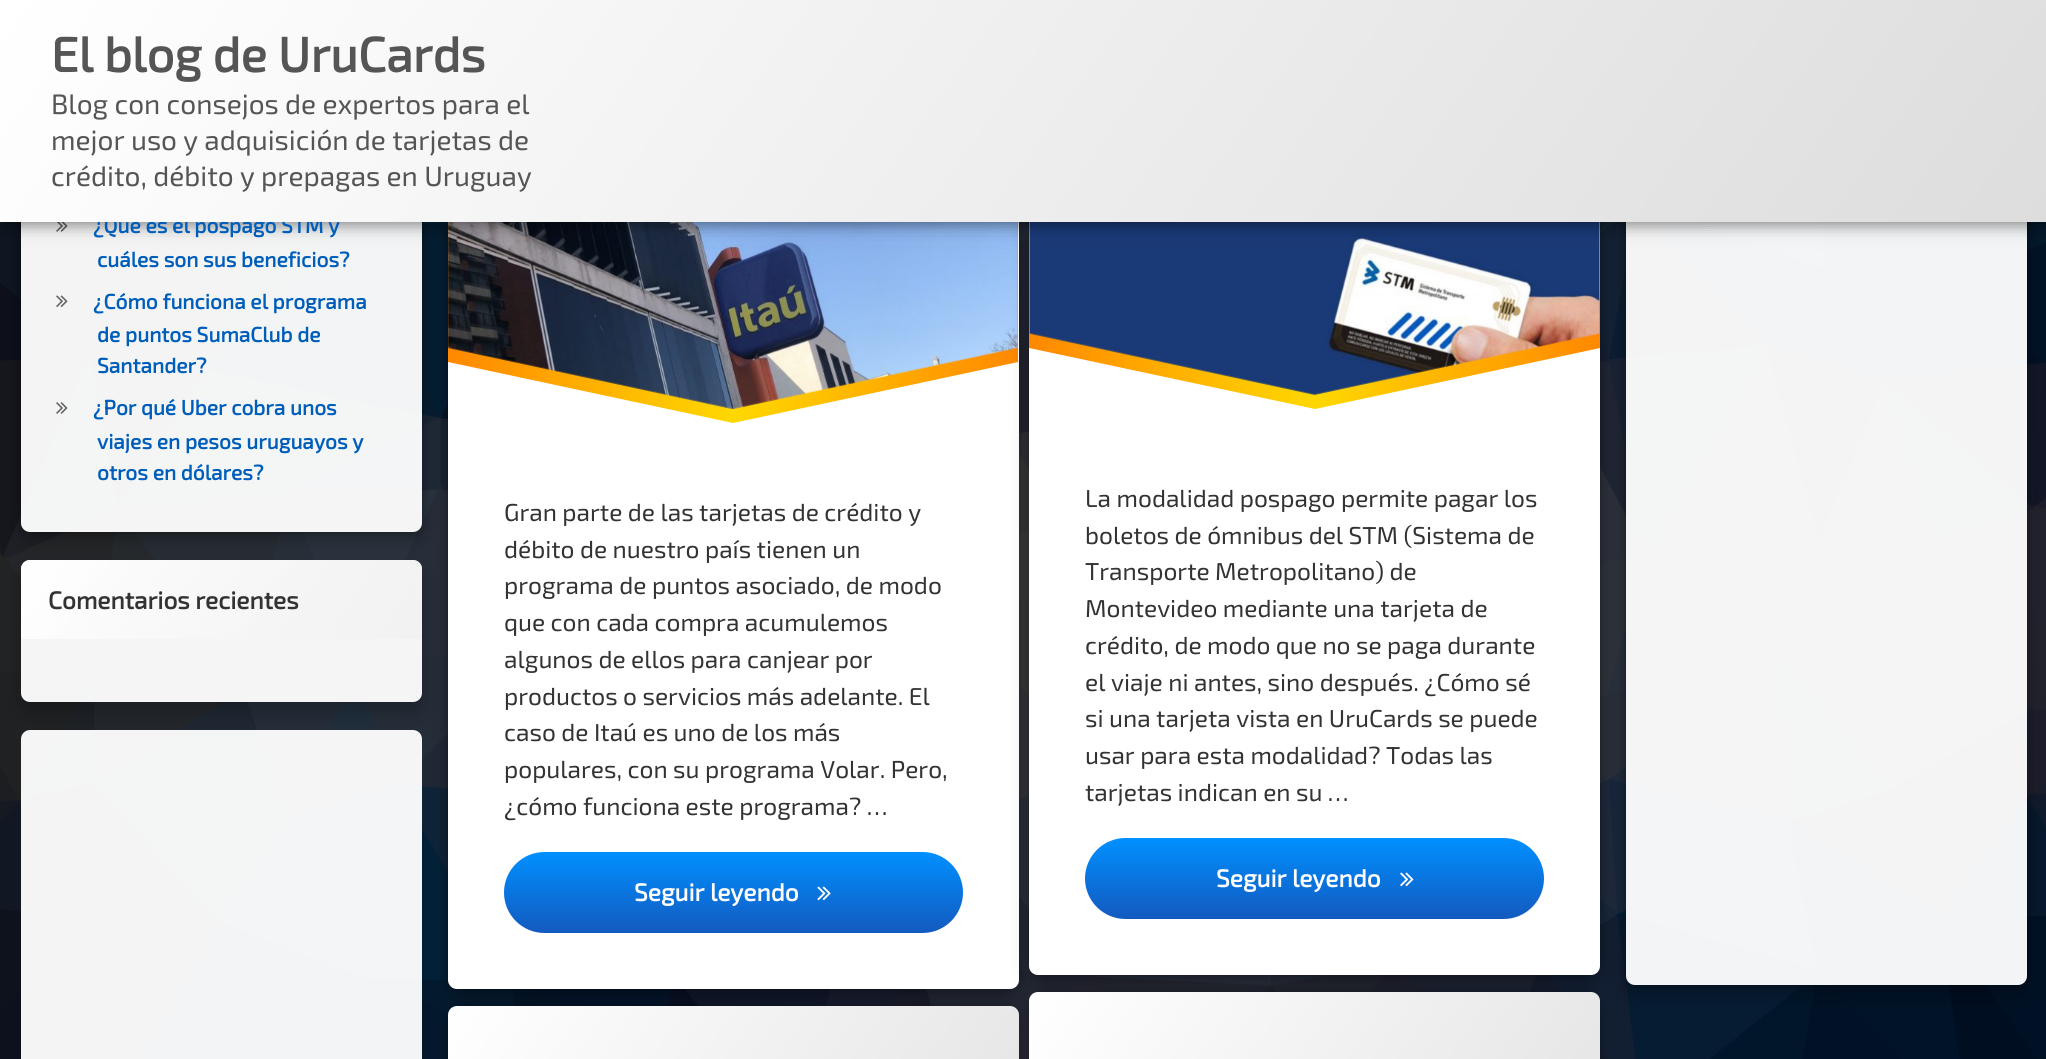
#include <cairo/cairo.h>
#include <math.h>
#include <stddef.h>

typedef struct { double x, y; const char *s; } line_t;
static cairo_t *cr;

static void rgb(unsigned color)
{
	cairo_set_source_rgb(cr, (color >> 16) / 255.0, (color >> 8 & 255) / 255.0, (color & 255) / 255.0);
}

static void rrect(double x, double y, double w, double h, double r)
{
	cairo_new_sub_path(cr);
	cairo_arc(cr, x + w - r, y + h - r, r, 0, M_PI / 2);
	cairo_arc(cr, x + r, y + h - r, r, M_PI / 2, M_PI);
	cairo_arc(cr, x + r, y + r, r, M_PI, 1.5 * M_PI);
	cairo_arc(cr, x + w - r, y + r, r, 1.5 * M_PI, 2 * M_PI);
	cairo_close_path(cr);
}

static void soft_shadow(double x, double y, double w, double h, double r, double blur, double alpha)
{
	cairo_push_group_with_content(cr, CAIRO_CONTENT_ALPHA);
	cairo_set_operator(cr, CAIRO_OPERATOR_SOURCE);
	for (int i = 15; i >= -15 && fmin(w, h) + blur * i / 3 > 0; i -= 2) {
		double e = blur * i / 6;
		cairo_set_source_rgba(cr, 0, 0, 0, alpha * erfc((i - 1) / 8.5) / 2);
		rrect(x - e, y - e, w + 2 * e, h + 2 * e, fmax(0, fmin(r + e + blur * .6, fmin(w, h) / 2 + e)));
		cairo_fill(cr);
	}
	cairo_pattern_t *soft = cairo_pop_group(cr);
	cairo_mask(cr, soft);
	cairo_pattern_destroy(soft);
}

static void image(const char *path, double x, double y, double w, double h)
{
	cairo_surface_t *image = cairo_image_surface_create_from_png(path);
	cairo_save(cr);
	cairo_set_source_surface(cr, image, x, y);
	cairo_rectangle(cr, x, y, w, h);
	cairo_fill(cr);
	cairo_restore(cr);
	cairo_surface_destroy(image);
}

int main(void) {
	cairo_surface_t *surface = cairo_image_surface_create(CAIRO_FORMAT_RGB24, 2046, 1059);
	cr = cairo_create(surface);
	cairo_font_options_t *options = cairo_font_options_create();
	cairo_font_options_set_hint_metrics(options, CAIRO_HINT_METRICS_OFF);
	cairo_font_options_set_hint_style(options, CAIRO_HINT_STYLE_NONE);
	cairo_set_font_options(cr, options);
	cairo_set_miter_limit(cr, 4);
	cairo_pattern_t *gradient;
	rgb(0xffffff);
	cairo_paint(cr);
	image("img/8.png", 0, 222, 2046, 837);
	cairo_save(cr);
	cairo_set_fill_rule(cr, CAIRO_FILL_RULE_EVEN_ODD);
	cairo_new_path(cr);
	cairo_move_to(cr, 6, 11);
	cairo_line_to(cr, 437, 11);
	cairo_line_to(cr, 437, 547);
	cairo_line_to(cr, 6, 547);
	cairo_close_path(cr);
	cairo_move_to(cr, 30, 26);
	cairo_line_to(cr, 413, 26);
	cairo_curve_to(cr, 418, 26, 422, 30, 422, 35);
	cairo_line_to(cr, 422, 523);
	cairo_curve_to(cr, 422, 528, 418, 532, 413, 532);
	cairo_line_to(cr, 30, 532);
	cairo_curve_to(cr, 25, 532, 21, 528, 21, 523);
	cairo_line_to(cr, 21, 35);
	cairo_curve_to(cr, 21, 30, 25, 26, 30, 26);
	cairo_close_path(cr);
	cairo_clip(cr);
	rgb(0x000000);
	soft_shadow(21, 26, 401, 506, 9, 4.5, 0.25);
	cairo_restore(cr);
	cairo_save(cr);
	cairo_set_fill_rule(cr, CAIRO_FILL_RULE_EVEN_ODD);
	cairo_new_path(cr);
	cairo_move_to(cr, 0, 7);
	cairo_line_to(cr, 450, 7);
	cairo_line_to(cr, 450, 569);
	cairo_line_to(cr, 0, 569);
	cairo_close_path(cr);
	cairo_move_to(cr, 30, 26);
	cairo_line_to(cr, 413, 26);
	cairo_curve_to(cr, 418, 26, 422, 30, 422, 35);
	cairo_line_to(cr, 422, 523);
	cairo_curve_to(cr, 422, 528, 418, 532, 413, 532);
	cairo_line_to(cr, 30, 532);
	cairo_curve_to(cr, 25, 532, 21, 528, 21, 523);
	cairo_line_to(cr, 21, 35);
	cairo_curve_to(cr, 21, 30, 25, 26, 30, 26);
	cairo_close_path(cr);
	cairo_clip(cr);
	rgb(0x000000);
	soft_shadow(21, 35, 401, 506, 9, 9, 0.25);
	cairo_restore(cr);
	cairo_set_source_rgba(cr, 1, 1, 1, 0.95);
	rrect(21, 26, 401, 506, 9);
	cairo_fill(cr);
	image("img/1.png", 56, 222, 12, 10);
	cairo_save(cr);
	cairo_set_fill_rule(cr, CAIRO_FILL_RULE_EVEN_ODD);
	cairo_new_path(cr);
	cairo_move_to(cr, 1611, 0);
	cairo_line_to(cr, 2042, 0);
	cairo_line_to(cr, 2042, 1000);
	cairo_line_to(cr, 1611, 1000);
	cairo_close_path(cr);
	cairo_move_to(cr, 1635, -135);
	cairo_line_to(cr, 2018, -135);
	cairo_curve_to(cr, 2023, -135, 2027, -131, 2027, -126);
	cairo_line_to(cr, 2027, 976);
	cairo_curve_to(cr, 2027, 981, 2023, 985, 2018, 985);
	cairo_line_to(cr, 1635, 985);
	cairo_curve_to(cr, 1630, 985, 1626, 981, 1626, 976);
	cairo_line_to(cr, 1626, -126);
	cairo_curve_to(cr, 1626, -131, 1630, -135, 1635, -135);
	cairo_close_path(cr);
	cairo_clip(cr);
	rgb(0x000000);
	soft_shadow(1626, -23, 401, 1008, 9, 4.5, 0.25);
	cairo_restore(cr);
	cairo_save(cr);
	cairo_set_fill_rule(cr, CAIRO_FILL_RULE_EVEN_ODD);
	cairo_new_path(cr);
	cairo_move_to(cr, 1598, 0);
	cairo_line_to(cr, 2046, 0);
	cairo_line_to(cr, 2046, 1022);
	cairo_line_to(cr, 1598, 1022);
	cairo_close_path(cr);
	cairo_move_to(cr, 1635, -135);
	cairo_line_to(cr, 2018, -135);
	cairo_curve_to(cr, 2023, -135, 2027, -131, 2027, -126);
	cairo_line_to(cr, 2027, 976);
	cairo_curve_to(cr, 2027, 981, 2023, 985, 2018, 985);
	cairo_line_to(cr, 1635, 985);
	cairo_curve_to(cr, 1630, 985, 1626, 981, 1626, 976);
	cairo_line_to(cr, 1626, -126);
	cairo_curve_to(cr, 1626, -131, 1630, -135, 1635, -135);
	cairo_close_path(cr);
	cairo_clip(cr);
	rgb(0x000000);
	soft_shadow(1626, -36, 401, 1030, 9, 9, 0.25);
	cairo_restore(cr);
	rrect(1626, -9, 401, 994, 9);
	cairo_fill(cr);
	cairo_save(cr);
	cairo_set_fill_rule(cr, CAIRO_FILL_RULE_EVEN_ODD);
	cairo_new_path(cr);
	cairo_move_to(cr, 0, 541);
	cairo_line_to(cr, 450, 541);
	cairo_line_to(cr, 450, 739);
	cairo_line_to(cr, 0, 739);
	cairo_close_path(cr);
	cairo_move_to(cr, 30, 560);
	cairo_line_to(cr, 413, 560);
	cairo_curve_to(cr, 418, 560, 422, 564, 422, 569);
	cairo_line_to(cr, 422, 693);
	cairo_curve_to(cr, 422, 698, 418, 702, 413, 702);
	cairo_line_to(cr, 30, 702);
	cairo_curve_to(cr, 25, 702, 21, 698, 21, 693);
	cairo_line_to(cr, 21, 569);
	cairo_curve_to(cr, 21, 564, 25, 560, 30, 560);
	cairo_close_path(cr);
	cairo_clip(cr);
	rgb(0x000000);
	soft_shadow(21, 569, 401, 142, 9, 9, 0.25);
	cairo_restore(cr);
	rgb(0x000000);
	soft_shadow(448, -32, 571, 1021, 18, 4.5, 0.25);
	cairo_set_source_rgba(cr, 1, 1, 1, 0.95);
	rrect(21, 560, 401, 142, 9);
	cairo_fill(cr);
	gradient = cairo_pattern_create_linear(68, 492, 374, 706);
	cairo_pattern_add_color_stop_rgba(gradient, 0, 1, 1, 1, 1);
	cairo_pattern_add_color_stop_rgba(gradient, 1, 0.941, 0.941, 0.941, 0.75);
	cairo_set_source(cr, gradient);
	cairo_pattern_destroy(gradient);
	cairo_new_path(cr);
	cairo_move_to(cr, 30, 560);
	cairo_line_to(cr, 413, 560);
	cairo_curve_to(cr, 418, 560, 422, 564, 422, 569);
	cairo_line_to(cr, 422, 639);
	cairo_line_to(cr, 21, 639);
	cairo_line_to(cr, 21, 569);
	cairo_curve_to(cr, 21, 564, 25, 560, 30, 560);
	cairo_close_path(cr);
	cairo_fill(cr);
	cairo_set_source_rgba(cr, 1, 1, 1, 0.95);
	rrect(21, 730, 401, 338, 9);
	cairo_fill(cr);
	rgb(0x000000);
	soft_shadow(448, -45, 571, 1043, 18, 9, 0.25);
	rgb(0xffffff);
	cairo_new_path(cr);
	cairo_move_to(cr, 466, -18);
	cairo_line_to(cr, 1001, -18);
	cairo_curve_to(cr, 1011, -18, 1019, -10, 1019, 0);
	cairo_line_to(cr, 1019, 980);
	cairo_curve_to(cr, 1019, 985, 1015, 989, 1010, 989);
	cairo_line_to(cr, 457, 989);
	cairo_curve_to(cr, 452, 989, 448, 985, 448, 980);
	cairo_line_to(cr, 448, 0);
	cairo_curve_to(cr, 448, -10, 456, -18, 466, -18);
	cairo_close_path(cr);
	cairo_fill(cr);
	gradient = cairo_pattern_create_linear(448, 317, 1019, 317);
	cairo_pattern_add_color_stop_rgba(gradient, 0, 1, 0.533, 0, 1);
	cairo_pattern_add_color_stop_rgba(gradient, 0.5, 1, 0.847, 0, 1);
	cairo_pattern_add_color_stop_rgba(gradient, 1, 1, 0.533, 0, 1);
	cairo_set_source(cr, gradient);
	cairo_pattern_destroy(gradient);
	cairo_new_path(cr);
	cairo_move_to(cr, 448, 210);
	cairo_line_to(cr, 1018, 210);
	cairo_line_to(cr, 1018, 362);
	cairo_line_to(cr, 733, 423);
	cairo_line_to(cr, 448, 362);
	cairo_close_path(cr);
	cairo_fill(cr);
	image("img/4.png", 448, 222, 570, 188);
	rgb(0x000000);
	soft_shadow(1029, -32, 571, 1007, 18, 4.5, 0.25);
	soft_shadow(1029, -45, 571, 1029, 18, 9, 0.25);
	rgb(0xffffff);
	cairo_new_path(cr);
	cairo_move_to(cr, 1047, -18);
	cairo_line_to(cr, 1582, -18);
	cairo_curve_to(cr, 1592, -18, 1600, -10, 1600, 0);
	cairo_line_to(cr, 1600, 966);
	cairo_curve_to(cr, 1600, 971, 1596, 975, 1591, 975);
	cairo_line_to(cr, 1038, 975);
	cairo_curve_to(cr, 1033, 975, 1029, 971, 1029, 966);
	cairo_line_to(cr, 1029, 0);
	cairo_curve_to(cr, 1029, -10, 1037, -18, 1047, -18);
	cairo_close_path(cr);
	cairo_fill(cr);
	gradient = cairo_pattern_create_linear(1029, 310, 1600, 310);
	cairo_pattern_add_color_stop_rgba(gradient, 0, 1, 0.533, 0, 1);
	cairo_pattern_add_color_stop_rgba(gradient, 0.5, 1, 0.847, 0, 1);
	cairo_pattern_add_color_stop_rgba(gradient, 1, 1, 0.533, 0, 1);
	cairo_set_source(cr, gradient);
	cairo_pattern_destroy(gradient);
	cairo_new_path(cr);
	cairo_move_to(cr, 1600, 210);
	cairo_line_to(cr, 1600, 348);
	cairo_line_to(cr, 1315, 409);
	cairo_line_to(cr, 1029, 348);
	cairo_line_to(cr, 1029, 210);
	cairo_close_path(cr);
	cairo_fill(cr);
	image("img/6.png", 1029, 222, 571, 173);
	rgb(0x000000);
	soft_shadow(4, 4, 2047, 222, 0, 6, 0.3);
	soft_shadow(0, 0, 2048, 222, 0, 13, 0.2);
	image("img/2.png", 56, 295, 12, 12);
	image("img/3.png", 56, 402, 12, 12);
	gradient = cairo_pattern_create_linear(733, 933, 733, 852);
	cairo_pattern_add_color_stop_rgba(gradient, 0, 0.075, 0.353, 0.749, 1);
	cairo_pattern_add_color_stop_rgba(gradient, 1, 0, 0.565, 1, 1);
	cairo_set_source(cr, gradient);
	cairo_pattern_destroy(gradient);
	rrect(504, 852, 459, 81, 40.5);
	cairo_fill(cr);
	image("img/5.png", 817, 886, 14, 15);
	gradient = cairo_pattern_create_linear(1314, 919, 1314, 838);
	cairo_pattern_add_color_stop_rgba(gradient, 0, 0.075, 0.353, 0.749, 1);
	cairo_pattern_add_color_stop_rgba(gradient, 1, 0, 0.565, 1, 1);
	cairo_set_source(cr, gradient);
	cairo_pattern_destroy(gradient);
	rrect(1085, 838, 459, 81, 40.5);
	cairo_fill(cr);
	image("img/7.png", 1400, 872, 14, 15);
	rgb(0x000000);
	soft_shadow(1029, 992, 571, 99, 18, 4.5, 0.25);
	gradient = cairo_pattern_create_linear(1029, 993, 1600, 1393);
	cairo_pattern_add_color_stop_rgba(gradient, 0, 1, 1, 1, 1);
	cairo_pattern_add_color_stop_rgba(gradient, 1, 0.867, 0.867, 0.867, 1);
	cairo_set_source(cr, gradient);
	cairo_pattern_destroy(gradient);
	cairo_new_path(cr);
	cairo_move_to(cr, 1038, 992);
	cairo_line_to(cr, 1591, 992);
	cairo_curve_to(cr, 1596, 992, 1600, 996, 1600, 1001);
	cairo_line_to(cr, 1600, 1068);
	cairo_line_to(cr, 1029, 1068);
	cairo_line_to(cr, 1029, 1001);
	cairo_curve_to(cr, 1029, 996, 1033, 992, 1038, 992);
	cairo_close_path(cr);
	cairo_fill(cr);
	rgb(0x000000);
	soft_shadow(448, 1006, 571, 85, 18, 4.5, 0.25);
	gradient = cairo_pattern_create_linear(447, 1007, 1019, 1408);
	cairo_pattern_add_color_stop_rgba(gradient, 0, 1, 1, 1, 1);
	cairo_pattern_add_color_stop_rgba(gradient, 1, 0.867, 0.867, 0.867, 1);
	cairo_set_source(cr, gradient);
	cairo_pattern_destroy(gradient);
	cairo_new_path(cr);
	cairo_move_to(cr, 457, 1006);
	cairo_line_to(cr, 1010, 1006);
	cairo_curve_to(cr, 1015, 1006, 1019, 1010, 1019, 1015);
	cairo_line_to(cr, 1019, 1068);
	cairo_line_to(cr, 448, 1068);
	cairo_line_to(cr, 448, 1015);
	cairo_curve_to(cr, 448, 1010, 452, 1006, 457, 1006);
	cairo_close_path(cr);
	cairo_fill(cr);
	cairo_select_font_face(cr, "Exo 2", CAIRO_FONT_SLANT_NORMAL, CAIRO_FONT_WEIGHT_BOLD);
	cairo_set_font_size(cr, 21);
	rgb(0x005ebb);
	cairo_move_to(cr, 93, 233);
	cairo_show_text(cr, "¿Qué es el pospago STM y");
	gradient = cairo_pattern_create_linear(285, -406, 1763, 629);
	cairo_pattern_add_color_stop_rgba(gradient, 0, 1, 1, 1, 1);
	cairo_pattern_add_color_stop_rgba(gradient, 1, 0.867, 0.867, 0.867, 1);
	cairo_set_source(cr, gradient);
	cairo_pattern_destroy(gradient);
	cairo_rectangle(cr, 0, 0, 2046, 222);
	cairo_fill(cr);
	cairo_select_font_face(cr, "Exo 2", CAIRO_FONT_SLANT_NORMAL, CAIRO_FONT_WEIGHT_NORMAL);
	cairo_set_font_size(cr, 28);
	rgb(0x555555);
	{
		static const line_t items[] = {
			{51, 186, "crédito, débito y prepagas en Uruguay"},
			{51, 150, "mejor uso y adquisición de tarjetas de"},
			{51, 114, "Blog con consejos de expertos para el"},
		};
		for (size_t i = 0; i < sizeof items / sizeof *items; i++) {
			cairo_move_to(cr, items[i].x, items[i].y);
			cairo_show_text(cr, items[i].s);
		}
	}
	cairo_select_font_face(cr, "Exo 2", CAIRO_FONT_SLANT_NORMAL, CAIRO_FONT_WEIGHT_BOLD);
	cairo_set_font_size(cr, 49);
	cairo_move_to(cr, 51, 72);
	cairo_show_text(cr, "El blog de UruCards");
	cairo_set_font_size(cr, 21);
	rgb(0x005ebb);
	{
		static const line_t items[] = {
			{97, 267, "cuáles son sus beneficios?"},
			{93, 309, "¿Cómo funciona el programa"},
			{97, 342, "de puntos SumaClub de"},
			{97, 373, "Santander?"},
			{93, 415, "¿Por qué Uber cobra unos"},
			{97, 449, "viajes en pesos uruguayos y"},
			{97, 480, "otros en dólares?"},
		};
		for (size_t i = 0; i < sizeof items / sizeof *items; i++) {
			cairo_move_to(cr, items[i].x, items[i].y);
			cairo_show_text(cr, items[i].s);
		}
	}
	cairo_set_font_size(cr, 24.5);
	rgb(0x333333);
	cairo_move_to(cr, 48, 609);
	cairo_show_text(cr, "Comentarios recientes");
	cairo_select_font_face(cr, "Exo 2", CAIRO_FONT_SLANT_NORMAL, CAIRO_FONT_WEIGHT_NORMAL);
	{
		static const line_t items[] = {
			{504, 521, "Gran parte de las tarjetas de crédito y"},
			{504, 558, "débito de nuestro país tienen un"},
			{504, 594, "programa de puntos asociado, de modo"},
			{504, 631, "que con cada compra acumulemos"},
			{504, 668, "algunos de ellos para canjear por"},
			{504, 705, "productos o servicios más adelante. El"},
			{504, 741, "caso de Itaú es uno de los más"},
			{504, 778, "populares, con su programa Volar. Pero,"},
			{504, 815, "¿cómo funciona este programa? …"},
		};
		for (size_t i = 0; i < sizeof items / sizeof *items; i++) {
			cairo_move_to(cr, items[i].x, items[i].y);
			cairo_show_text(cr, items[i].s);
		}
	}
	cairo_select_font_face(cr, "Exo 2", CAIRO_FONT_SLANT_NORMAL, CAIRO_FONT_WEIGHT_BOLD);
	rgb(0xffffff);
	cairo_move_to(cr, 634, 901);
	cairo_show_text(cr, "Seguir leyendo");
	cairo_select_font_face(cr, "Exo 2", CAIRO_FONT_SLANT_NORMAL, CAIRO_FONT_WEIGHT_NORMAL);
	rgb(0x333333);
	{
		static const line_t items[] = {
			{1085, 507, "La modalidad pospago permite pagar los"},
			{1085, 544, "boletos de ómnibus del STM (Sistema de"},
			{1085, 580, "Transporte Metropolitano) de"},
			{1085, 617, "Montevideo mediante una tarjeta de"},
			{1085, 654, "crédito, de modo que no se paga durante"},
			{1085, 691, "el viaje ni antes, sino después. ¿Cómo sé"},
			{1085, 727, "si una tarjeta vista en UruCards se puede"},
			{1085, 764, "usar para esta modalidad? Todas las"},
			{1085, 801, "tarjetas indican en su …"},
		};
		for (size_t i = 0; i < sizeof items / sizeof *items; i++) {
			cairo_move_to(cr, items[i].x, items[i].y);
			cairo_show_text(cr, items[i].s);
		}
	}
	cairo_select_font_face(cr, "Exo 2", CAIRO_FONT_SLANT_NORMAL, CAIRO_FONT_WEIGHT_BOLD);
	rgb(0xffffff);
	cairo_move_to(cr, 1216, 887);
	cairo_show_text(cr, "Seguir leyendo");
	cairo_surface_write_to_png(surface, "page.png");
	cairo_font_options_destroy(options);
	cairo_destroy(cr);
	cairo_surface_destroy(surface);
	return 0;
}
